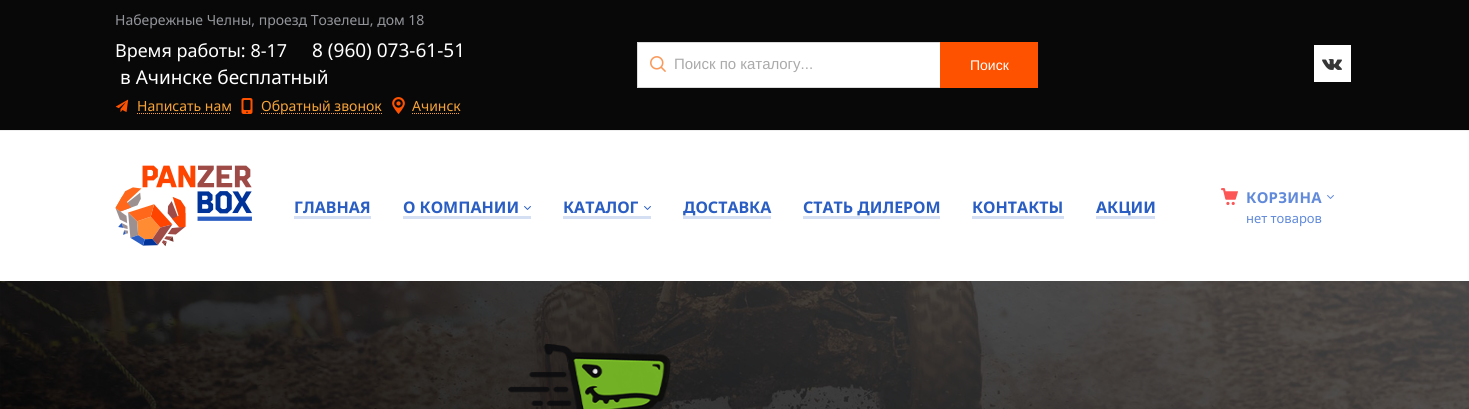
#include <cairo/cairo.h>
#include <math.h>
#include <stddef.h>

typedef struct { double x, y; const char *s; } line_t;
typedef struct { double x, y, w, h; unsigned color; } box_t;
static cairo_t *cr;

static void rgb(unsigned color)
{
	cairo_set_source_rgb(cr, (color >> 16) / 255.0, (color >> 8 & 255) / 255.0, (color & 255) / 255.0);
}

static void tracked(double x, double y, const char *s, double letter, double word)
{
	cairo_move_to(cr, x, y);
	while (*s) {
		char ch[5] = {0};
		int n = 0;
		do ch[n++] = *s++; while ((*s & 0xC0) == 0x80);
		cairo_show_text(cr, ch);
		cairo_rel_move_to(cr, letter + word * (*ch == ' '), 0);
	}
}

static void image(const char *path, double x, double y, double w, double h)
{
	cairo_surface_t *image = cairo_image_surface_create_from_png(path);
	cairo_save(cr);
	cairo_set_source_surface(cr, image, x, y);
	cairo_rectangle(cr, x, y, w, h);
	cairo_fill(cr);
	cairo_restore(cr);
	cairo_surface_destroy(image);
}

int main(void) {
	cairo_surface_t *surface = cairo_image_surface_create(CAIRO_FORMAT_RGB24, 1469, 409);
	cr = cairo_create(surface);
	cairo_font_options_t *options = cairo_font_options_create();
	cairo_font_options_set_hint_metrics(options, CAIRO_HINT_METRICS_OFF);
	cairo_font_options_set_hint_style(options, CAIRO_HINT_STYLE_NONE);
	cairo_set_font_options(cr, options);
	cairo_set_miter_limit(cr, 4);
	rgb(0xffffff);
	cairo_paint(cr);
	rgb(0xeeeeee);
	cairo_rectangle(cr, 0, 130, 1469, 1);
	cairo_fill(cr);
	rgb(0x080808);
	cairo_rectangle(cr, 0, 0, 1469, 130);
	cairo_fill(cr);
	image("img/1.png", 115, 99, 14, 13);
	cairo_new_path(cr);
	cairo_move_to(cr, 137, 113.5);
	cairo_line_to(cr, 231, 113.5);
	rgb(0xf8a438);
	cairo_set_line_width(cr, 1);
	cairo_set_dash(cr, (double[]){1, 1}, 2, 0);
	cairo_stroke(cr);
	image("img/2.png", 241, 98, 12, 16);
	cairo_new_path(cr);
	cairo_move_to(cr, 261, 113.5);
	cairo_line_to(cr, 382, 113.5);
	cairo_stroke(cr);
	image("img/3.png", 392, 97, 13, 17);
	cairo_new_path(cr);
	cairo_move_to(cr, 412, 113.5);
	cairo_line_to(cr, 460, 113.5);
	cairo_stroke(cr);
	rgb(0xffffff);
	cairo_rectangle(cr, 638, 43, 302, 44);
	cairo_fill(cr);
	cairo_rectangle(cr, 637.5, 42.5, 400, 45);
	rgb(0xdbdbdb);
	cairo_set_dash(cr, NULL, 0, 0);
	cairo_stroke(cr);
	image("img/4.png", 650, 56, 16, 16);
	rgb(0xff5200);
	cairo_rectangle(cr, 940, 42, 98, 46);
	cairo_fill(cr);
	rgb(0xffffff);
	cairo_rectangle(cr, 1314, 45, 37, 37);
	cairo_fill(cr);
	image("img/5.png", 1322, 59, 20, 11);
	image("img/6.png", 115, 165, 137, 82);
	rgb(0xd4dff3);
	cairo_rectangle(cr, 294, 216, 77, 3);
	cairo_fill(cr);
	image("img/7.png", 524, 206, 7, 4);
	cairo_rectangle(cr, 403, 216, 128, 3);
	cairo_fill(cr);
	image("img/7.png", 644, 206, 7, 4);
	{
		static const box_t items[] = {
			{563, 216, 88, 3, 0xd4dff3},
			{683, 216, 88, 3, 0xd4dff3},
			{803, 216, 137, 3, 0xd4dff3},
			{972, 216, 92, 3, 0xd4dff3},
			{1096, 216, 59, 3, 0xd4dff3},
		};
		for (size_t i = 0; i < sizeof items / sizeof *items; i++) {
			rgb(items[i].color);
			cairo_rectangle(cr, items[i].x, items[i].y, items[i].w, items[i].h);
			cairo_fill(cr);
		}
	}
	image("img/8.png", 1221, 188, 17, 17);
	image("img/9.png", 1327, 195, 7, 4);
	image("img/12.png", 0, 281, 1469, 128);
	image("img/10.png", 508, 344, 38, 62);
	image("img/11.png", 546, 344, 125, 65);
	cairo_select_font_face(cr, "Noto Sans", CAIRO_FONT_SLANT_NORMAL, CAIRO_FONT_WEIGHT_NORMAL);
	cairo_set_font_size(cr, 14);
	rgb(0x93959a);
	cairo_move_to(cr, 115, 25);
	cairo_show_text(cr, "Набережные Челны, проезд Тозелеш, дом 18");
	cairo_set_font_size(cr, 18);
	rgb(0xffffff);
	cairo_move_to(cr, 115, 57);
	cairo_show_text(cr, "Время работы: 8-17");
	cairo_set_font_size(cr, 19);
	cairo_move_to(cr, 312, 57);
	cairo_show_text(cr, "8 (960) 073-61-51");
	cairo_move_to(cr, 120, 84);
	cairo_show_text(cr, "в Ачинске бесплатный");
	cairo_set_font_size(cr, 14);
	rgb(0xf8a438);
	{
		static const line_t items[] = {
			{137, 111, "Написать нам"},
			{261, 111, "Обратный звонок"},
			{412, 111, "Ачинск"},
		};
		for (size_t i = 0; i < sizeof items / sizeof *items; i++) {
			cairo_move_to(cr, items[i].x, items[i].y);
			cairo_show_text(cr, items[i].s);
		}
	}
	cairo_select_font_face(cr, "Liberation Sans", CAIRO_FONT_SLANT_NORMAL, CAIRO_FONT_WEIGHT_NORMAL);
	cairo_set_font_size(cr, 15);
	rgb(0xaaaaaa);
	cairo_move_to(cr, 674, 69);
	cairo_show_text(cr, "Поиск по каталогу...");
	cairo_set_font_size(cr, 14);
	rgb(0xffffff);
	cairo_move_to(cr, 970, 70);
	cairo_show_text(cr, "Поиск");
	cairo_select_font_face(cr, "Noto Sans", CAIRO_FONT_SLANT_NORMAL, CAIRO_FONT_WEIGHT_BOLD);
	cairo_set_font_size(cr, 16);
	rgb(0x2a5ec3);
	{
		static const line_t items[] = {
			{294, 213, "ГЛАВНАЯ"},
			{403, 213, "О КОМПАНИИ"},
			{563, 213, "КАТАЛОГ"},
			{683, 213, "ДОСТАВКА"},
			{803, 213, "СТАТЬ ДИЛЕРОМ"},
			{972, 213, "КОНТАКТЫ"},
			{1096, 213, "АКЦИИ"},
		};
		for (size_t i = 0; i < sizeof items / sizeof *items; i++) {
			cairo_move_to(cr, items[i].x, items[i].y);
			cairo_show_text(cr, items[i].s);
		}
	}
	cairo_set_font_size(cr, 15);
	rgb(0x618ada);
	tracked(1246, 203, "КОРЗИНА", 0.25, 0);
	cairo_select_font_face(cr, "Noto Sans", CAIRO_FONT_SLANT_NORMAL, CAIRO_FONT_WEIGHT_NORMAL);
	cairo_set_font_size(cr, 13);
	cairo_move_to(cr, 1246, 223);
	cairo_show_text(cr, "нет товаров");
	cairo_surface_write_to_png(surface, "page.png");
	cairo_font_options_destroy(options);
	cairo_destroy(cr);
	cairo_surface_destroy(surface);
	return 0;
}
